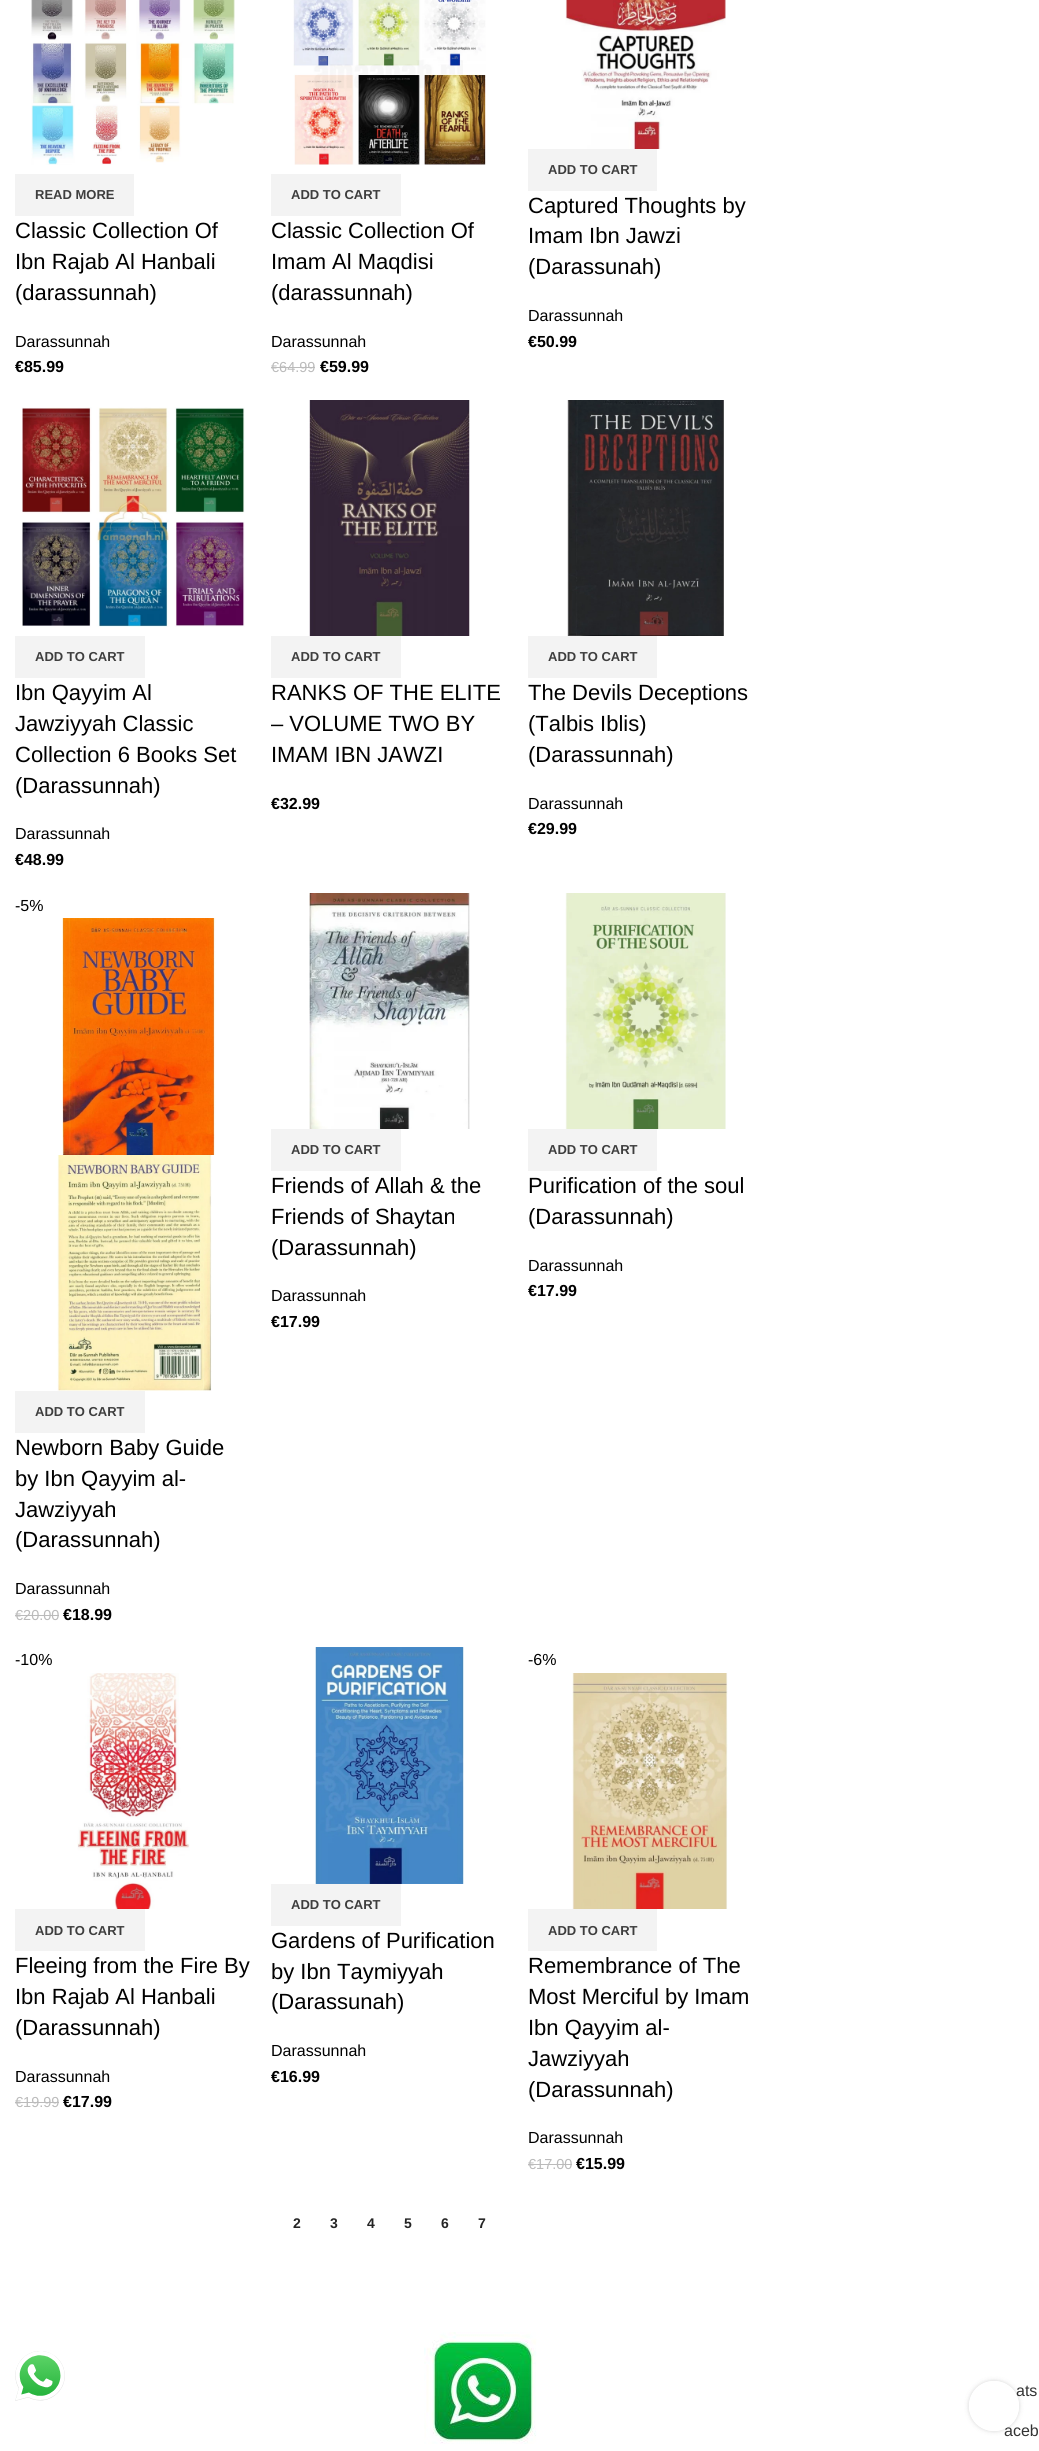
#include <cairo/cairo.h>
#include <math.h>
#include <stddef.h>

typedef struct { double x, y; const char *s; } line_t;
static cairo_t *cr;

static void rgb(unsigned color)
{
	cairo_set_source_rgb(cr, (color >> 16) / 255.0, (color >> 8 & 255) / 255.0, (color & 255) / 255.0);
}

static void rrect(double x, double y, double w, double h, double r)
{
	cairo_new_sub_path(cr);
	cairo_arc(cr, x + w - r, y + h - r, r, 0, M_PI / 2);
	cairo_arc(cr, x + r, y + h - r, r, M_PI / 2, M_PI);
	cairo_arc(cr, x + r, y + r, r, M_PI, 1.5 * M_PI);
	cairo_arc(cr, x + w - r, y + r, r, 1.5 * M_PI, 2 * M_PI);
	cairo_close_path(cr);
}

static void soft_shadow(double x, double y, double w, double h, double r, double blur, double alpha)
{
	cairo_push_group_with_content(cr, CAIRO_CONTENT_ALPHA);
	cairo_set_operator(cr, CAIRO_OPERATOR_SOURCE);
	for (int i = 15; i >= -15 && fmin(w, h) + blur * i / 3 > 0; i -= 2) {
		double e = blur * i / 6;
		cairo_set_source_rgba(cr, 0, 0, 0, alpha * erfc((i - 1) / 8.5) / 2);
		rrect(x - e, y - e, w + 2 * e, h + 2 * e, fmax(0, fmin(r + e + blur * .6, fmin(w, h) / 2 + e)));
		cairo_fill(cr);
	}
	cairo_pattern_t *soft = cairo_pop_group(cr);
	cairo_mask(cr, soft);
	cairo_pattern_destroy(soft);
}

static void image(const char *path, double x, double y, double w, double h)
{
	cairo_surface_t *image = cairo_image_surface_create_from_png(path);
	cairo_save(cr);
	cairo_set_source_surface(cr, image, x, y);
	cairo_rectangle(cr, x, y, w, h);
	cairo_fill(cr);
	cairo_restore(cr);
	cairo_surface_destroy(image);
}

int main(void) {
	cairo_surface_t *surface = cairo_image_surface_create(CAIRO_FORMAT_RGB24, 1039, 2451);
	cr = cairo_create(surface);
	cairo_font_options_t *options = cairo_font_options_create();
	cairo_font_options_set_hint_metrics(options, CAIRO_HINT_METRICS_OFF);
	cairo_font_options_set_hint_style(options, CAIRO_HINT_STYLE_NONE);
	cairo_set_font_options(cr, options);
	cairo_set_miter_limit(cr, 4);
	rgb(0xffffff);
	cairo_paint(cr);
	image("img/1.png", 31, 0, 204, 165);
	rgb(0xf3f3f3);
	cairo_rectangle(cr, 15, 174, 119, 42);
	cairo_fill(cr);
	image("img/2.png", 293, 0, 193, 165);
	cairo_rectangle(cr, 271, 174, 130, 42);
	cairo_fill(cr);
	rgb(0xbbbbbb);
	cairo_rectangle(cr, 271, 367, 44, 1);
	cairo_fill(cr);
	image("img/3.png", 565, 0, 161, 149);
	rgb(0xf3f3f3);
	cairo_rectangle(cr, 528, 149, 129, 42);
	cairo_fill(cr);
	image("img/4.png", 22, 407, 223, 220);
	cairo_rectangle(cr, 15, 636, 130, 42);
	cairo_fill(cr);
	image("img/5.png", 309, 400, 161, 236);
	cairo_rectangle(cr, 271, 636, 130, 42);
	cairo_fill(cr);
	image("img/6.png", 567, 400, 157, 236);
	cairo_rectangle(cr, 528, 636, 129, 42);
	cairo_fill(cr);
	image("img/7.png", 62, 918, 154, 237);
	image("img/8.png", 57, 1155, 155, 236);
	cairo_rectangle(cr, 15, 1391, 130, 42);
	cairo_fill(cr);
	rgb(0xbbbbbb);
	cairo_rectangle(cr, 15, 1615, 44, 1);
	cairo_fill(cr);
	image("img/9.png", 309, 893, 161, 236);
	rgb(0xf3f3f3);
	cairo_rectangle(cr, 271, 1129, 130, 42);
	cairo_fill(cr);
	image("img/10.png", 565, 893, 161, 236);
	cairo_rectangle(cr, 528, 1129, 129, 42);
	cairo_fill(cr);
	image("img/11.png", 77, 1673, 113, 236);
	cairo_rectangle(cr, 15, 1909, 130, 42);
	cairo_fill(cr);
	rgb(0xbbbbbb);
	cairo_rectangle(cr, 15, 2102, 44, 1);
	cairo_fill(cr);
	image("img/12.png", 315, 1647, 149, 237);
	rgb(0xf3f3f3);
	cairo_rectangle(cr, 271, 1884, 130, 42);
	cairo_fill(cr);
	image("img/13.png", 572, 1673, 156, 236);
	cairo_rectangle(cr, 528, 1909, 129, 42);
	cairo_fill(cr);
	rgb(0xbbbbbb);
	cairo_rectangle(cr, 528, 2164, 44, 1);
	cairo_fill(cr);
	image("img/14.png", 15, 2351, 50, 50);
	cairo_save(cr);
	cairo_set_fill_rule(cr, CAIRO_FILL_RULE_EVEN_ODD);
	cairo_new_path(cr);
	cairo_move_to(cr, 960, 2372);
	cairo_line_to(cr, 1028, 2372);
	cairo_line_to(cr, 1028, 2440);
	cairo_line_to(cr, 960, 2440);
	cairo_close_path(cr);
	cairo_move_to(cr, 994, 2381);
	cairo_curve_to(cr, 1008, 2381, 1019, 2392, 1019, 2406);
	cairo_curve_to(cr, 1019, 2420, 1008, 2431, 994, 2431);
	cairo_curve_to(cr, 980, 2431, 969, 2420, 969, 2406);
	cairo_curve_to(cr, 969, 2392, 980, 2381, 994, 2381);
	cairo_close_path(cr);
	cairo_clip(cr);
	rgb(0x000000);
	soft_shadow(969, 2381, 50, 50, 25, 2.5, 0.17);
	cairo_restore(cr);
	image("img/15.png", 424, 2332, 116, 112);
	cairo_select_font_face(cr, "Liberation Sans", CAIRO_FONT_SLANT_NORMAL, CAIRO_FONT_WEIGHT_BOLD);
	cairo_set_font_size(cr, 13);
	rgb(0x3e3e3e);
	cairo_move_to(cr, 35, 199);
	cairo_show_text(cr, "READ MORE");
	cairo_select_font_face(cr, "Liberation Sans", CAIRO_FONT_SLANT_NORMAL, CAIRO_FONT_WEIGHT_NORMAL);
	cairo_set_font_size(cr, 22);
	rgb(0x000000);
	{
		static const line_t items[] = {
			{15, 238, "Classic Collection Of"},
			{15, 269, "Ibn Rajab Al Hanbali"},
			{15, 300, "(darassunnah)"},
		};
		for (size_t i = 0; i < sizeof items / sizeof *items; i++) {
			cairo_move_to(cr, items[i].x, items[i].y);
			cairo_show_text(cr, items[i].s);
		}
	}
	cairo_set_font_size(cr, 16);
	cairo_move_to(cr, 15, 347);
	cairo_show_text(cr, "Darassunnah");
	cairo_select_font_face(cr, "Liberation Sans", CAIRO_FONT_SLANT_NORMAL, CAIRO_FONT_WEIGHT_BOLD);
	cairo_move_to(cr, 15, 372);
	cairo_show_text(cr, "€85.99");
	cairo_set_font_size(cr, 13);
	rgb(0x3e3e3e);
	cairo_move_to(cr, 291, 199);
	cairo_show_text(cr, "ADD TO CART");
	cairo_select_font_face(cr, "Liberation Sans", CAIRO_FONT_SLANT_NORMAL, CAIRO_FONT_WEIGHT_NORMAL);
	cairo_set_font_size(cr, 22);
	rgb(0x000000);
	{
		static const line_t items[] = {
			{271, 238, "Classic Collection Of"},
			{271, 269, "Imam Al Maqdisi"},
			{271, 300, "(darassunnah)"},
		};
		for (size_t i = 0; i < sizeof items / sizeof *items; i++) {
			cairo_move_to(cr, items[i].x, items[i].y);
			cairo_show_text(cr, items[i].s);
		}
	}
	cairo_set_font_size(cr, 16);
	cairo_move_to(cr, 271, 347);
	cairo_show_text(cr, "Darassunnah");
	cairo_set_font_size(cr, 14.5);
	rgb(0xbbbbbb);
	cairo_move_to(cr, 271, 372);
	cairo_show_text(cr, "€64.99");
	cairo_select_font_face(cr, "Liberation Sans", CAIRO_FONT_SLANT_NORMAL, CAIRO_FONT_WEIGHT_BOLD);
	cairo_set_font_size(cr, 16);
	rgb(0x000000);
	cairo_move_to(cr, 320, 372);
	cairo_show_text(cr, "€59.99");
	cairo_set_font_size(cr, 13);
	rgb(0x3e3e3e);
	cairo_move_to(cr, 548, 174);
	cairo_show_text(cr, "ADD TO CART");
	cairo_select_font_face(cr, "Liberation Sans", CAIRO_FONT_SLANT_NORMAL, CAIRO_FONT_WEIGHT_NORMAL);
	cairo_set_font_size(cr, 22);
	rgb(0x000000);
	{
		static const line_t items[] = {
			{528, 213, "Captured Thoughts by"},
			{528, 243, "Imam Ibn Jawzi"},
			{528, 274, "(Darassunah)"},
		};
		for (size_t i = 0; i < sizeof items / sizeof *items; i++) {
			cairo_move_to(cr, items[i].x, items[i].y);
			cairo_show_text(cr, items[i].s);
		}
	}
	cairo_set_font_size(cr, 16);
	cairo_move_to(cr, 528, 321);
	cairo_show_text(cr, "Darassunnah");
	cairo_select_font_face(cr, "Liberation Sans", CAIRO_FONT_SLANT_NORMAL, CAIRO_FONT_WEIGHT_BOLD);
	cairo_move_to(cr, 528, 347);
	cairo_show_text(cr, "€50.99");
	cairo_set_font_size(cr, 13);
	rgb(0x3e3e3e);
	cairo_move_to(cr, 35, 661);
	cairo_show_text(cr, "ADD TO CART");
	cairo_select_font_face(cr, "Liberation Sans", CAIRO_FONT_SLANT_NORMAL, CAIRO_FONT_WEIGHT_NORMAL);
	cairo_set_font_size(cr, 22);
	rgb(0x000000);
	{
		static const line_t items[] = {
			{15, 700, "Ibn Qayyim Al"},
			{15, 731, "Jawziyyah Classic"},
			{15, 762, "Collection 6 Books Set"},
			{15, 793, "(Darassunnah)"},
		};
		for (size_t i = 0; i < sizeof items / sizeof *items; i++) {
			cairo_move_to(cr, items[i].x, items[i].y);
			cairo_show_text(cr, items[i].s);
		}
	}
	cairo_set_font_size(cr, 16);
	cairo_move_to(cr, 15, 839);
	cairo_show_text(cr, "Darassunnah");
	cairo_select_font_face(cr, "Liberation Sans", CAIRO_FONT_SLANT_NORMAL, CAIRO_FONT_WEIGHT_BOLD);
	cairo_move_to(cr, 15, 865);
	cairo_show_text(cr, "€48.99");
	cairo_set_font_size(cr, 13);
	rgb(0x3e3e3e);
	cairo_move_to(cr, 291, 661);
	cairo_show_text(cr, "ADD TO CART");
	cairo_select_font_face(cr, "Liberation Sans", CAIRO_FONT_SLANT_NORMAL, CAIRO_FONT_WEIGHT_NORMAL);
	cairo_set_font_size(cr, 22);
	rgb(0x000000);
	{
		static const line_t items[] = {
			{271, 700, "RANKS OF THE ELITE"},
			{271, 731, "– VOLUME TWO BY"},
			{271, 762, "IMAM IBN JAWZI"},
		};
		for (size_t i = 0; i < sizeof items / sizeof *items; i++) {
			cairo_move_to(cr, items[i].x, items[i].y);
			cairo_show_text(cr, items[i].s);
		}
	}
	cairo_select_font_face(cr, "Liberation Sans", CAIRO_FONT_SLANT_NORMAL, CAIRO_FONT_WEIGHT_BOLD);
	cairo_set_font_size(cr, 16);
	cairo_move_to(cr, 271, 809);
	cairo_show_text(cr, "€32.99");
	cairo_set_font_size(cr, 13);
	rgb(0x3e3e3e);
	cairo_move_to(cr, 548, 661);
	cairo_show_text(cr, "ADD TO CART");
	cairo_select_font_face(cr, "Liberation Sans", CAIRO_FONT_SLANT_NORMAL, CAIRO_FONT_WEIGHT_NORMAL);
	cairo_set_font_size(cr, 22);
	rgb(0x000000);
	{
		static const line_t items[] = {
			{528, 700, "The Devils Deceptions"},
			{528, 731, "(Talbis Iblis)"},
			{528, 762, "(Darassunnah)"},
		};
		for (size_t i = 0; i < sizeof items / sizeof *items; i++) {
			cairo_move_to(cr, items[i].x, items[i].y);
			cairo_show_text(cr, items[i].s);
		}
	}
	cairo_set_font_size(cr, 16);
	cairo_move_to(cr, 528, 809);
	cairo_show_text(cr, "Darassunnah");
	cairo_select_font_face(cr, "Liberation Sans", CAIRO_FONT_SLANT_NORMAL, CAIRO_FONT_WEIGHT_BOLD);
	cairo_move_to(cr, 528, 834);
	cairo_show_text(cr, "€29.99");
	cairo_select_font_face(cr, "Liberation Sans", CAIRO_FONT_SLANT_NORMAL, CAIRO_FONT_WEIGHT_NORMAL);
	cairo_move_to(cr, 15, 911);
	cairo_show_text(cr, "-5%");
	cairo_select_font_face(cr, "Liberation Sans", CAIRO_FONT_SLANT_NORMAL, CAIRO_FONT_WEIGHT_BOLD);
	cairo_set_font_size(cr, 13);
	rgb(0x3e3e3e);
	cairo_move_to(cr, 35, 1416);
	cairo_show_text(cr, "ADD TO CART");
	cairo_select_font_face(cr, "Liberation Sans", CAIRO_FONT_SLANT_NORMAL, CAIRO_FONT_WEIGHT_NORMAL);
	cairo_set_font_size(cr, 22);
	rgb(0x000000);
	{
		static const line_t items[] = {
			{15, 1455, "Newborn Baby Guide"},
			{15, 1486, "by Ibn Qayyim al-"},
			{15, 1517, "Jawziyyah"},
			{15, 1547, "(Darassunnah)"},
		};
		for (size_t i = 0; i < sizeof items / sizeof *items; i++) {
			cairo_move_to(cr, items[i].x, items[i].y);
			cairo_show_text(cr, items[i].s);
		}
	}
	cairo_set_font_size(cr, 16);
	cairo_move_to(cr, 15, 1594);
	cairo_show_text(cr, "Darassunnah");
	cairo_set_font_size(cr, 14.5);
	rgb(0xbbbbbb);
	cairo_move_to(cr, 15, 1620);
	cairo_show_text(cr, "€20.00");
	cairo_select_font_face(cr, "Liberation Sans", CAIRO_FONT_SLANT_NORMAL, CAIRO_FONT_WEIGHT_BOLD);
	cairo_set_font_size(cr, 16);
	rgb(0x000000);
	cairo_move_to(cr, 63, 1620);
	cairo_show_text(cr, "€18.99");
	cairo_set_font_size(cr, 13);
	rgb(0x3e3e3e);
	cairo_move_to(cr, 291, 1154);
	cairo_show_text(cr, "ADD TO CART");
	cairo_select_font_face(cr, "Liberation Sans", CAIRO_FONT_SLANT_NORMAL, CAIRO_FONT_WEIGHT_NORMAL);
	cairo_set_font_size(cr, 22);
	rgb(0x000000);
	{
		static const line_t items[] = {
			{271, 1193, "Friends of Allah & the"},
			{271, 1224, "Friends of Shaytan"},
			{271, 1255, "(Darassunnah)"},
		};
		for (size_t i = 0; i < sizeof items / sizeof *items; i++) {
			cairo_move_to(cr, items[i].x, items[i].y);
			cairo_show_text(cr, items[i].s);
		}
	}
	cairo_set_font_size(cr, 16);
	cairo_move_to(cr, 271, 1301);
	cairo_show_text(cr, "Darassunnah");
	cairo_select_font_face(cr, "Liberation Sans", CAIRO_FONT_SLANT_NORMAL, CAIRO_FONT_WEIGHT_BOLD);
	cairo_move_to(cr, 271, 1327);
	cairo_show_text(cr, "€17.99");
	cairo_set_font_size(cr, 13);
	rgb(0x3e3e3e);
	cairo_move_to(cr, 548, 1154);
	cairo_show_text(cr, "ADD TO CART");
	cairo_select_font_face(cr, "Liberation Sans", CAIRO_FONT_SLANT_NORMAL, CAIRO_FONT_WEIGHT_NORMAL);
	cairo_set_font_size(cr, 22);
	rgb(0x000000);
	cairo_move_to(cr, 528, 1193);
	cairo_show_text(cr, "Purification of the soul");
	cairo_move_to(cr, 528, 1224);
	cairo_show_text(cr, "(Darassunnah)");
	cairo_set_font_size(cr, 16);
	cairo_move_to(cr, 528, 1271);
	cairo_show_text(cr, "Darassunnah");
	cairo_select_font_face(cr, "Liberation Sans", CAIRO_FONT_SLANT_NORMAL, CAIRO_FONT_WEIGHT_BOLD);
	cairo_move_to(cr, 528, 1296);
	cairo_show_text(cr, "€17.99");
	cairo_select_font_face(cr, "Liberation Sans", CAIRO_FONT_SLANT_NORMAL, CAIRO_FONT_WEIGHT_NORMAL);
	cairo_move_to(cr, 15, 1665);
	cairo_show_text(cr, "-10%");
	cairo_select_font_face(cr, "Liberation Sans", CAIRO_FONT_SLANT_NORMAL, CAIRO_FONT_WEIGHT_BOLD);
	cairo_set_font_size(cr, 13);
	rgb(0x3e3e3e);
	cairo_move_to(cr, 35, 1935);
	cairo_show_text(cr, "ADD TO CART");
	cairo_select_font_face(cr, "Liberation Sans", CAIRO_FONT_SLANT_NORMAL, CAIRO_FONT_WEIGHT_NORMAL);
	cairo_set_font_size(cr, 22);
	rgb(0x000000);
	{
		static const line_t items[] = {
			{15, 1973, "Fleeing from the Fire By"},
			{15, 2004, "Ibn Rajab Al Hanbali"},
			{15, 2035, "(Darassunnah)"},
		};
		for (size_t i = 0; i < sizeof items / sizeof *items; i++) {
			cairo_move_to(cr, items[i].x, items[i].y);
			cairo_show_text(cr, items[i].s);
		}
	}
	cairo_set_font_size(cr, 16);
	cairo_move_to(cr, 15, 2082);
	cairo_show_text(cr, "Darassunnah");
	cairo_set_font_size(cr, 14.5);
	rgb(0xbbbbbb);
	cairo_move_to(cr, 15, 2107);
	cairo_show_text(cr, "€19.99");
	cairo_select_font_face(cr, "Liberation Sans", CAIRO_FONT_SLANT_NORMAL, CAIRO_FONT_WEIGHT_BOLD);
	cairo_set_font_size(cr, 16);
	rgb(0x000000);
	cairo_move_to(cr, 63, 2107);
	cairo_show_text(cr, "€17.99");
	cairo_set_font_size(cr, 13);
	rgb(0x3e3e3e);
	cairo_move_to(cr, 291, 1909);
	cairo_show_text(cr, "ADD TO CART");
	cairo_select_font_face(cr, "Liberation Sans", CAIRO_FONT_SLANT_NORMAL, CAIRO_FONT_WEIGHT_NORMAL);
	cairo_set_font_size(cr, 22);
	rgb(0x000000);
	{
		static const line_t items[] = {
			{271, 1948, "Gardens of Purification"},
			{271, 1979, "by Ibn Taymiyyah"},
			{271, 2009, "(Darassunah)"},
		};
		for (size_t i = 0; i < sizeof items / sizeof *items; i++) {
			cairo_move_to(cr, items[i].x, items[i].y);
			cairo_show_text(cr, items[i].s);
		}
	}
	cairo_set_font_size(cr, 16);
	cairo_move_to(cr, 271, 2056);
	cairo_show_text(cr, "Darassunnah");
	cairo_select_font_face(cr, "Liberation Sans", CAIRO_FONT_SLANT_NORMAL, CAIRO_FONT_WEIGHT_BOLD);
	cairo_move_to(cr, 271, 2082);
	cairo_show_text(cr, "€16.99");
	cairo_select_font_face(cr, "Liberation Sans", CAIRO_FONT_SLANT_NORMAL, CAIRO_FONT_WEIGHT_NORMAL);
	cairo_move_to(cr, 528, 1665);
	cairo_show_text(cr, "-6%");
	cairo_select_font_face(cr, "Liberation Sans", CAIRO_FONT_SLANT_NORMAL, CAIRO_FONT_WEIGHT_BOLD);
	cairo_set_font_size(cr, 13);
	rgb(0x3e3e3e);
	cairo_move_to(cr, 548, 1935);
	cairo_show_text(cr, "ADD TO CART");
	cairo_select_font_face(cr, "Liberation Sans", CAIRO_FONT_SLANT_NORMAL, CAIRO_FONT_WEIGHT_NORMAL);
	cairo_set_font_size(cr, 22);
	rgb(0x000000);
	{
		static const line_t items[] = {
			{528, 1973, "Remembrance of The"},
			{528, 2004, "Most Merciful by Imam"},
			{528, 2035, "Ibn Qayyim al-"},
			{528, 2066, "Jawziyyah"},
			{528, 2097, "(Darassunnah)"},
		};
		for (size_t i = 0; i < sizeof items / sizeof *items; i++) {
			cairo_move_to(cr, items[i].x, items[i].y);
			cairo_show_text(cr, items[i].s);
		}
	}
	cairo_set_font_size(cr, 16);
	cairo_move_to(cr, 528, 2143);
	cairo_show_text(cr, "Darassunnah");
	cairo_set_font_size(cr, 14.5);
	rgb(0xbbbbbb);
	cairo_move_to(cr, 528, 2169);
	cairo_show_text(cr, "€17.00");
	cairo_select_font_face(cr, "Liberation Sans", CAIRO_FONT_SLANT_NORMAL, CAIRO_FONT_WEIGHT_BOLD);
	cairo_set_font_size(cr, 16);
	rgb(0x000000);
	cairo_move_to(cr, 576, 2169);
	cairo_show_text(cr, "€15.99");
	cairo_set_font_size(cr, 14);
	rgb(0x242424);
	{
		static const line_t items[] = {
			{293, 2228, "2"},
			{330, 2228, "3"},
			{367, 2228, "4"},
			{404, 2228, "5"},
			{441, 2228, "6"},
			{478, 2228, "7"},
		};
		for (size_t i = 0; i < sizeof items / sizeof *items; i++) {
			cairo_move_to(cr, items[i].x, items[i].y);
			cairo_show_text(cr, items[i].s);
		}
	}
	cairo_select_font_face(cr, "Liberation Sans", CAIRO_FONT_SLANT_NORMAL, CAIRO_FONT_WEIGHT_NORMAL);
	cairo_set_font_size(cr, 16);
	rgb(0x333333);
	cairo_move_to(cr, 1016, 2396);
	cairo_show_text(cr, "ats");
	cairo_move_to(cr, 1004, 2436);
	cairo_show_text(cr, "aceb");
	cairo_set_source_rgba(cr, 1, 1, 1, 0.9);
	cairo_new_path(cr);
	cairo_arc(cr, 994, 2406, 25, 0, 2 * M_PI);
	cairo_fill(cr);
	cairo_surface_write_to_png(surface, "page.png");
	cairo_font_options_destroy(options);
	cairo_destroy(cr);
	cairo_surface_destroy(surface);
	return 0;
}
